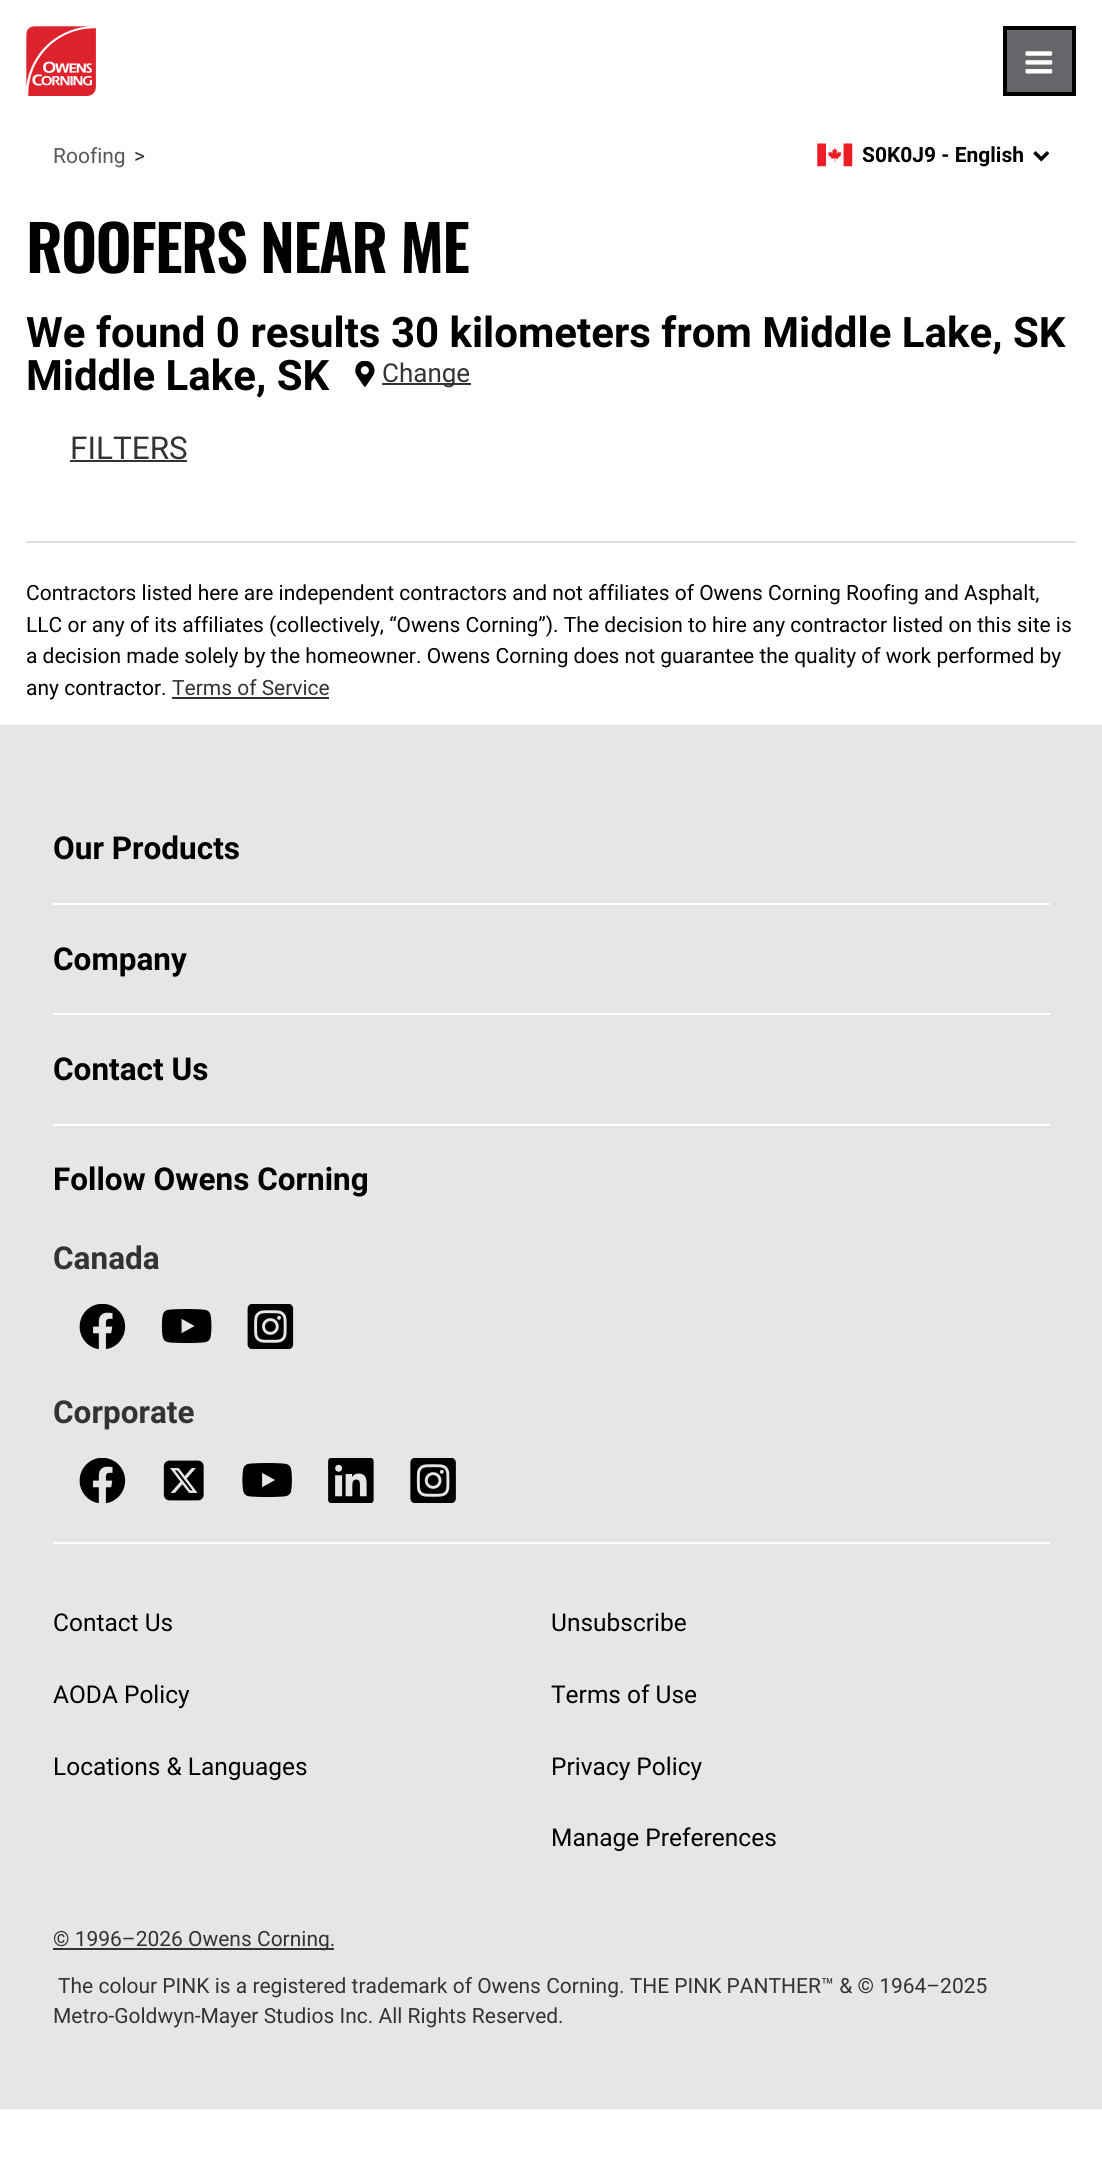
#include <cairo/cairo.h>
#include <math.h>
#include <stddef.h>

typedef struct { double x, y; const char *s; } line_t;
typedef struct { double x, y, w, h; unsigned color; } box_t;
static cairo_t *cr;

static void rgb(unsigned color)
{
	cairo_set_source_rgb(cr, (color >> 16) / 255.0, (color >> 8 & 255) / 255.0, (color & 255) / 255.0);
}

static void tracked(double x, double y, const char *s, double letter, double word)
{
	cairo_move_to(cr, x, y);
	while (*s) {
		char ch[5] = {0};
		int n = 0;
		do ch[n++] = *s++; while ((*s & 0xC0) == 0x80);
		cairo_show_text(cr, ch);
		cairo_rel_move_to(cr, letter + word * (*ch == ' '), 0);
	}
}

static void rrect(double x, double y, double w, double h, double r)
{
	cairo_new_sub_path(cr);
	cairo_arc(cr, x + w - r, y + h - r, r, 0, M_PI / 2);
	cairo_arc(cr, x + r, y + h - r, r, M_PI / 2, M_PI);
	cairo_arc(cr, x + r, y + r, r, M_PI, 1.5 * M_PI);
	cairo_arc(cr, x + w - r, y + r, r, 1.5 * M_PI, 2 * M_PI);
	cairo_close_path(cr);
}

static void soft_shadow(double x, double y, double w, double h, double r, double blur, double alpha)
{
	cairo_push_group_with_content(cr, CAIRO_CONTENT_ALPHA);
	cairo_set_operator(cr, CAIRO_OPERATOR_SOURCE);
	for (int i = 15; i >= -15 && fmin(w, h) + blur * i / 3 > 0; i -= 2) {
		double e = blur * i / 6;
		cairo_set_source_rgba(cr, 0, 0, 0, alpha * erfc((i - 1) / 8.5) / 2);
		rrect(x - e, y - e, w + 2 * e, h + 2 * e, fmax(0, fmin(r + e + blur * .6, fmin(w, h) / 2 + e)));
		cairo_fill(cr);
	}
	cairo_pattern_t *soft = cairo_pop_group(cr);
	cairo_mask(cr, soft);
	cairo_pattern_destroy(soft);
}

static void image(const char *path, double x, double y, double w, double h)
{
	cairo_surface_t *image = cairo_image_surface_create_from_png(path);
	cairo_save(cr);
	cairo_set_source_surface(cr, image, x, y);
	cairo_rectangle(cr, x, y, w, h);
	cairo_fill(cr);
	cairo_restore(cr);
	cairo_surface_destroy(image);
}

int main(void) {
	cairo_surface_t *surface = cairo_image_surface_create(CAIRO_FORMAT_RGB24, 1102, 2161);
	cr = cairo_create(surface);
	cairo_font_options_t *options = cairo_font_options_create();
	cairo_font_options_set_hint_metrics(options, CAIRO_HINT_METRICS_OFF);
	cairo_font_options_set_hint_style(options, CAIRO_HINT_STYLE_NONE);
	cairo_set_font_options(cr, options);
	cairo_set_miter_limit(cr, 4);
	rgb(0xffffff);
	cairo_paint(cr);
	cairo_save(cr);
	cairo_rectangle(cr, 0, 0, 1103, 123);
	cairo_clip(cr);
	cairo_set_fill_rule(cr, CAIRO_FILL_RULE_EVEN_ODD);
	cairo_new_path(cr);
	cairo_move_to(cr, 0, 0);
	cairo_line_to(cr, 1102, 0);
	cairo_line_to(cr, 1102, 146);
	cairo_line_to(cr, 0, 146);
	cairo_close_path(cr);
	cairo_move_to(cr, 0, 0);
	cairo_line_to(cr, 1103, 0);
	cairo_line_to(cr, 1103, 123);
	cairo_line_to(cr, 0, 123);
	cairo_close_path(cr);
	cairo_clip(cr);
	rgb(0x000000);
	soft_shadow(0, 9, 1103, 122, 0, 4.5, 0.15);
	cairo_restore(cr);
	image("img/1.png", 26, 26, 70, 70);
	rgb(0x65666a);
	cairo_rectangle(cr, 1005, 28, 69, 66);
	cairo_fill_preserve(cr);
	rgb(0x000000);
	cairo_set_line_width(cr, 4);
	cairo_stroke(cr);
	image("img/2.png", 1025, 51, 28, 23);
	image("img/3.png", 817, 143, 36, 24);
	image("img/4.png", 1033, 151, 17, 11);
	image("img/5.png", 355, 361, 20, 26);
	{
		static const box_t items[] = {
			{382, 383, 89, 2, 0x333333},
			{70, 460, 117, 2, 0x333333},
			{26, 541, 1050, 2, 0xe0e0e0},
			{172, 697, 157, 2, 0x333333},
			{0, 725, 1102, 1384, 0xe6e6e6},
			{53, 903, 997, 2, 0xffffff},
			{53, 1013, 997, 2, 0xffffff},
			{53, 1124, 997, 2, 0xffffff},
			{53, 1542, 997, 2, 0xffffff},
		};
		for (size_t i = 0; i < sizeof items / sizeof *items; i++) {
			rgb(items[i].color);
			cairo_rectangle(cr, items[i].x, items[i].y, items[i].w, items[i].h);
			cairo_fill(cr);
		}
	}
	image("img/6.png", 79, 1304, 47, 45);
	image("img/7.png", 161, 1309, 51, 35);
	image("img/8.png", 247, 1304, 47, 45);
	image("img/6.png", 79, 1458, 47, 45);
	image("img/9.png", 163, 1460, 41, 41);
	image("img/10.png", 242, 1463, 50, 35);
	image("img/11.png", 328, 1458, 46, 45);
	image("img/12.png", 410, 1458, 46, 45);
	rgb(0x333333);
	cairo_rectangle(cr, 53, 1948, 281, 2);
	cairo_fill(cr);
	cairo_select_font_face(cr, "Roboto", CAIRO_FONT_SLANT_NORMAL, CAIRO_FONT_WEIGHT_NORMAL);
	cairo_set_font_size(cr, 21);
	rgb(0x585858);
	cairo_move_to(cr, 53, 163);
	cairo_show_text(cr, "Roofing");
	rgb(0x333333);
	cairo_move_to(cr, 134, 163);
	cairo_show_text(cr, ">");
	cairo_select_font_face(cr, "Roboto", CAIRO_FONT_SLANT_NORMAL, CAIRO_FONT_WEIGHT_BOLD);
	rgb(0x000000);
	cairo_move_to(cr, 862, 162);
	cairo_show_text(cr, "S0K0J9 - English");
	cairo_select_font_face(cr, "Oswald SemiBold", CAIRO_FONT_SLANT_NORMAL, CAIRO_FONT_WEIGHT_NORMAL);
	cairo_set_font_size(cr, 63);
	tracked(26, 273, "ROOFERS NEAR ME", -1.75, 0);
	cairo_select_font_face(cr, "Roboto", CAIRO_FONT_SLANT_NORMAL, CAIRO_FONT_WEIGHT_BOLD);
	cairo_set_font_size(cr, 42);
	cairo_move_to(cr, 26, 347);
	cairo_show_text(cr, "We found 0 results 30 kilometers from Middle Lake, SK");
	cairo_move_to(cr, 26, 390);
	cairo_show_text(cr, "Middle Lake, SK");
	cairo_select_font_face(cr, "Roboto", CAIRO_FONT_SLANT_NORMAL, CAIRO_FONT_WEIGHT_NORMAL);
	cairo_set_font_size(cr, 26);
	rgb(0x333333);
	cairo_move_to(cr, 382, 382);
	cairo_show_text(cr, "Change");
	cairo_set_font_size(cr, 31.5);
	cairo_move_to(cr, 70, 459);
	cairo_show_text(cr, "FILTERS");
	cairo_set_font_size(cr, 21);
	rgb(0x000000);
	{
		static const line_t items[] = {
			{26, 600, "Contractors listed here are independent contractors and not affiliates of Owens Corning Roofing and Asphalt,"},
			{26, 632, "LLC or any of its affiliates (collectively, “Owens Corning”). The decision to hire any contractor listed on this site is"},
			{26, 663, "a decision made solely by the homeowner. Owens Corning does not guarantee the quality of work performed by"},
			{26, 695, "any contractor."},
		};
		for (size_t i = 0; i < sizeof items / sizeof *items; i++) {
			cairo_move_to(cr, items[i].x, items[i].y);
			cairo_show_text(cr, items[i].s);
		}
	}
	rgb(0x333333);
	cairo_move_to(cr, 172, 695);
	cairo_show_text(cr, "Terms of Service");
	cairo_select_font_face(cr, "Roboto", CAIRO_FONT_SLANT_NORMAL, CAIRO_FONT_WEIGHT_BOLD);
	cairo_set_font_size(cr, 31.5);
	rgb(0x000000);
	{
		static const line_t items[] = {
			{53, 859, "Our Products"},
			{53, 970, "Company"},
			{53, 1080, "Contact Us"},
			{53, 1190, "Follow Owens Corning"},
		};
		for (size_t i = 0; i < sizeof items / sizeof *items; i++) {
			cairo_move_to(cr, items[i].x, items[i].y);
			cairo_show_text(cr, items[i].s);
		}
	}
	rgb(0x333333);
	cairo_move_to(cr, 53, 1269);
	cairo_show_text(cr, "Canada");
	cairo_move_to(cr, 53, 1423);
	cairo_show_text(cr, "Corporate");
	cairo_select_font_face(cr, "Roboto", CAIRO_FONT_SLANT_NORMAL, CAIRO_FONT_WEIGHT_NORMAL);
	cairo_set_font_size(cr, 24.5);
	rgb(0x000000);
	{
		static const line_t items[] = {
			{53, 1631, "Contact Us"},
			{53, 1703, "AODA Policy"},
			{53, 1775, "Locations & Languages"},
			{551, 1631, "Unsubscribe"},
			{551, 1703, "Terms of Use"},
			{551, 1775, "Privacy Policy"},
			{551, 1846, "Manage Preferences"},
		};
		for (size_t i = 0; i < sizeof items / sizeof *items; i++) {
			cairo_move_to(cr, items[i].x, items[i].y);
			cairo_show_text(cr, items[i].s);
		}
	}
	cairo_set_font_size(cr, 21);
	rgb(0x333333);
	{
		static const line_t items[] = {
			{53, 1946, "© 1996–2026 Owens Corning."},
			{58, 1993, "The colour PINK is a registered trademark of Owens Corning. THE PINK PANTHER™ & © 1964–2025"},
			{53, 2023, "Metro-Goldwyn-Mayer Studios Inc. All Rights Reserved."},
		};
		for (size_t i = 0; i < sizeof items / sizeof *items; i++) {
			cairo_move_to(cr, items[i].x, items[i].y);
			cairo_show_text(cr, items[i].s);
		}
	}
	cairo_surface_write_to_png(surface, "page.png");
	cairo_font_options_destroy(options);
	cairo_destroy(cr);
	cairo_surface_destroy(surface);
	return 0;
}
